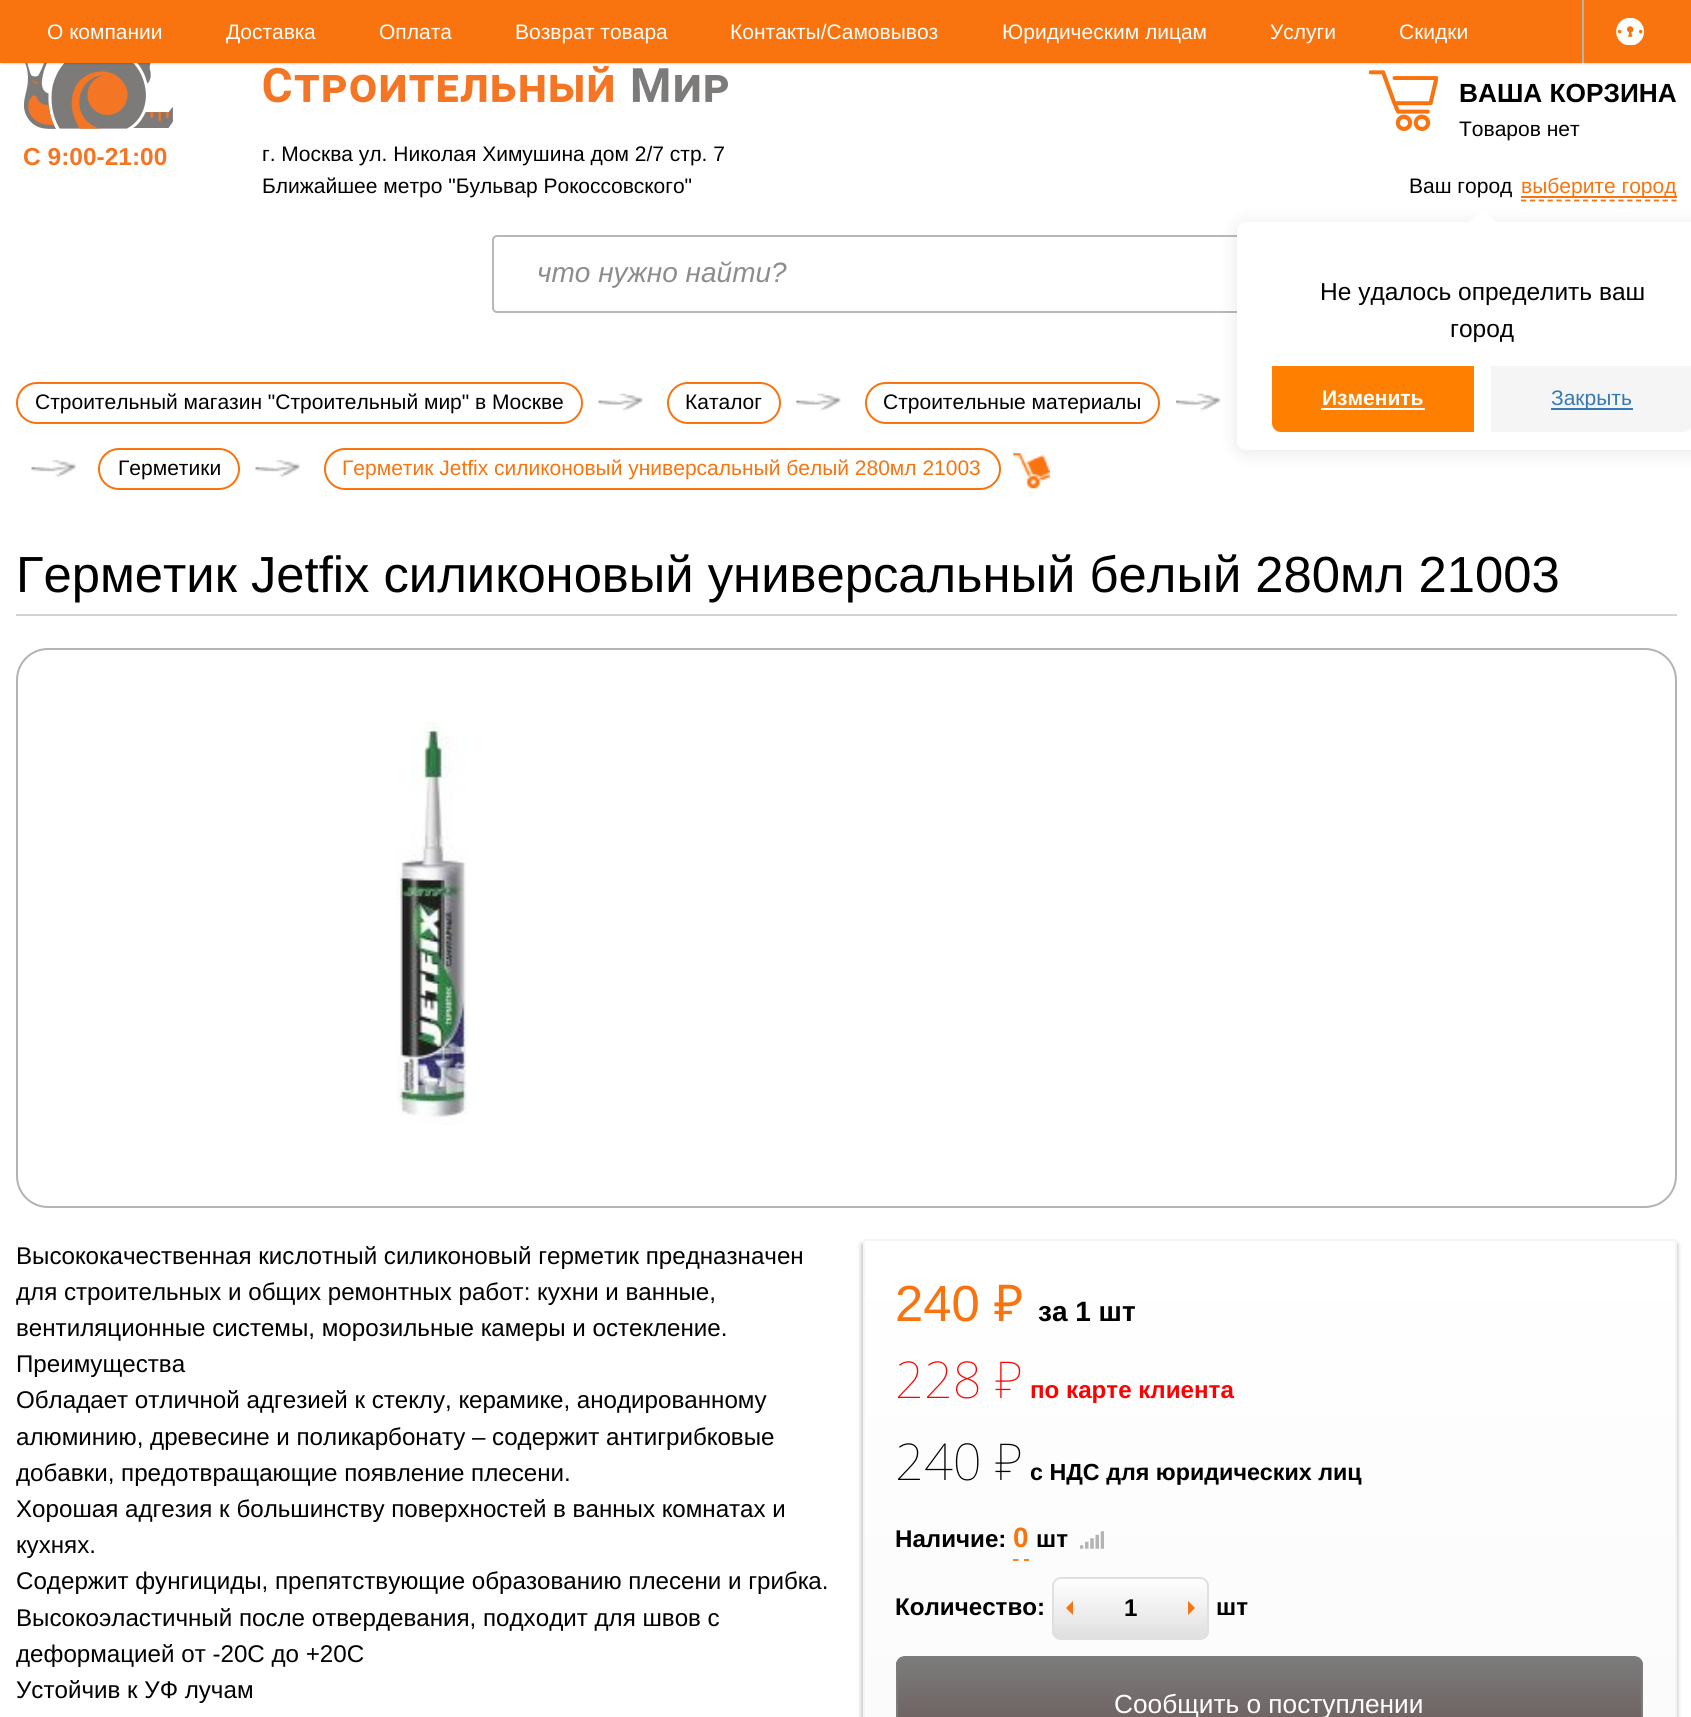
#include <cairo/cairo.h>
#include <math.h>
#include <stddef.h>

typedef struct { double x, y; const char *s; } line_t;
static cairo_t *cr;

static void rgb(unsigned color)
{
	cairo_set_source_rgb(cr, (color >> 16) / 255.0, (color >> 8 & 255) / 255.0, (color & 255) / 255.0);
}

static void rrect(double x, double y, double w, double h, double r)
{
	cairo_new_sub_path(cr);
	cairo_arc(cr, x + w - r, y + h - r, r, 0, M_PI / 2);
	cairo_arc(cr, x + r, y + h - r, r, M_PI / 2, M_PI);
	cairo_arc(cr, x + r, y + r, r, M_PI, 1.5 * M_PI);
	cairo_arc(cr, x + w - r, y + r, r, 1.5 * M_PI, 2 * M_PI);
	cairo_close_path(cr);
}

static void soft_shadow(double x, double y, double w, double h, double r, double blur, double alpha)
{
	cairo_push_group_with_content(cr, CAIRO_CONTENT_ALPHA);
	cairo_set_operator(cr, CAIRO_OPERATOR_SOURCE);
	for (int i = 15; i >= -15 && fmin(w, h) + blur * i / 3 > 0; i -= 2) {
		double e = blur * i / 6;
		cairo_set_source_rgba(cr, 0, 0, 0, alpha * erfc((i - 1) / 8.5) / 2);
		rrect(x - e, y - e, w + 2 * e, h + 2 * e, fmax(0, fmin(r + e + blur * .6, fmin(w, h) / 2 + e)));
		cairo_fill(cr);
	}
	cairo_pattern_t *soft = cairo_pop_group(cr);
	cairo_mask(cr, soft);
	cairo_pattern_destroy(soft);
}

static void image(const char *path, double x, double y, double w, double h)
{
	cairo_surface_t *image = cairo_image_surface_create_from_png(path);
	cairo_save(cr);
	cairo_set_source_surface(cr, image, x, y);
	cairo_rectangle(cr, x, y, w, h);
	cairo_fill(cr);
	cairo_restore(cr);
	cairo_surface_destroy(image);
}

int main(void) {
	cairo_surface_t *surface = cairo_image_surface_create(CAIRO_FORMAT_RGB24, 1691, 1717);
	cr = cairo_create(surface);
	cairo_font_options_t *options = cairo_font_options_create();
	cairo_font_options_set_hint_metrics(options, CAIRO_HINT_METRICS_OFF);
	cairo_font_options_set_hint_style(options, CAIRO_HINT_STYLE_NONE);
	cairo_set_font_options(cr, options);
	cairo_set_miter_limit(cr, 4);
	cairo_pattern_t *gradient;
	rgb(0xffffff);
	cairo_paint(cr);
	image("img/2.png", 23, 63, 705, 66);
	rgb(0x000000);
	soft_shadow(2, 2, 1689, 59, 0, 2, 1);
	rgb(0xf9730e);
	cairo_rectangle(cr, 0, 0, 1691, 63);
	cairo_fill(cr);
	rgb(0xb4b4b4);
	cairo_rectangle(cr, 1582, 0, 2, 63);
	cairo_fill(cr);
	image("img/1.png", 1616, 18, 29, 27);
	image("img/3.png", 1369, 70, 69, 61);
	cairo_new_path(cr);
	cairo_move_to(cr, 1521, 200.5);
	cairo_line_to(cr, 1676.5, 200.5);
	rgb(0xf9730e);
	cairo_set_line_width(cr, 1.8);
	cairo_set_dash(cr, (double[]){5.25, 3.6}, 2, 0);
	cairo_stroke(cr);
	cairo_rectangle(cr, 1521, 196, 156, 2);
	cairo_fill(cr);
	rrect(493, 236, 1183, 76, 4);
	rgb(0xb8b8b8);
	cairo_set_line_width(cr, 2);
	cairo_set_dash(cr, NULL, 0, 0);
	cairo_stroke(cr);
	rrect(17, 383, 565, 40, 20);
	rgb(0xf9730e);
	cairo_stroke(cr);
	image("img/4.png", 598, 393, 45, 20);
	rrect(668, 383, 112, 40, 20);
	cairo_stroke(cr);
	image("img/5.png", 796, 393, 45, 20);
	rrect(866, 383, 293, 40, 20);
	cairo_stroke(cr);
	image("img/6.png", 1176, 393, 45, 20);
	image("img/7.png", 31, 460, 45, 19);
	rrect(99, 449, 140, 40, 20);
	cairo_stroke(cr);
	image("img/7.png", 255, 460, 45, 19);
	rrect(325, 449, 675, 40, 20);
	cairo_stroke(cr);
	image("img/8.png", 1013, 453, 37, 36);
	rgb(0xd3d3d3);
	cairo_rectangle(cr, 16, 614, 1661, 2);
	cairo_fill(cr);
	rrect(17, 649, 1659, 558, 31);
	rgb(0xb3b3b3);
	cairo_stroke(cr);
	image("img/9.png", 396, 722, 72, 403);
	rgb(0xc7c7c7);
	soft_shadow(861, 1244, 810, 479, 0, 2, 1);
	soft_shadow(868, 1244, 810, 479, 0, 2, 1);
	gradient = cairo_pattern_create_linear(1270, 1241, 1270, 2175);
	cairo_pattern_add_color_stop_rgba(gradient, 0, 1, 1, 1, 1);
	cairo_pattern_add_color_stop_rgba(gradient, 1, 0.969, 0.969, 0.969, 1);
	cairo_set_source(cr, gradient);
	cairo_pattern_destroy(gradient);
	cairo_rectangle(cr, 865, 1241, 810, 476);
	cairo_fill(cr);
	cairo_rectangle(cr, 864, 1240, 812, 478);
	rgb(0xf5f5f5);
	cairo_stroke(cr);
	cairo_new_path(cr);
	cairo_move_to(cr, 1013, 1560);
	cairo_line_to(cr, 1018.5, 1560);
	cairo_move_to(cr, 1024, 1560);
	cairo_line_to(cr, 1029, 1560);
	rgb(0xf9730e);
	cairo_set_line_width(cr, 1.8);
	cairo_stroke(cr);
	image("img/10.png", 1080, 1531, 24, 18);
	cairo_save(cr);
	rrect(1052, 1577, 157, 63, 9);
	cairo_clip(cr);
	gradient = cairo_pattern_create_linear(1131, 1579, 1131, 1638);
	cairo_pattern_add_color_stop_rgba(gradient, 0, 1, 1, 1, 1);
	cairo_pattern_add_color_stop_rgba(gradient, 1, 0.878, 0.878, 0.878, 1);
	cairo_set_source(cr, gradient);
	cairo_pattern_destroy(gradient);
	cairo_rectangle(cr, 1052, 1579, 157, 59);
	cairo_fill(cr);
	cairo_restore(cr);
	rrect(1053, 1578, 155, 61, 8);
	rgb(0xe0e0e0);
	cairo_set_line_width(cr, 2);
	cairo_stroke(cr);
	rgb(0xf9730e);
	cairo_new_path(cr);
	cairo_move_to(cr, 1073, 1601);
	cairo_line_to(cr, 1073, 1615);
	cairo_line_to(cr, 1066, 1608);
	cairo_close_path(cr);
	cairo_fill(cr);
	cairo_new_path(cr);
	cairo_move_to(cr, 1188, 1615);
	cairo_line_to(cr, 1188, 1601);
	cairo_line_to(cr, 1195, 1608);
	cairo_close_path(cr);
	cairo_fill(cr);
	cairo_save(cr);
	rrect(896, 1656, 747, 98, 9);
	cairo_clip(cr);
	gradient = cairo_pattern_create_linear(1270, 1657, 1270, 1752);
	cairo_pattern_add_color_stop_rgba(gradient, 0, 0.486, 0.486, 0.486, 1);
	cairo_pattern_add_color_stop_rgba(gradient, 1, 0.412, 0.341, 0.341, 1);
	cairo_set_source(cr, gradient);
	cairo_pattern_destroy(gradient);
	cairo_rectangle(cr, 896, 1657, 747, 60);
	cairo_fill(cr);
	cairo_restore(cr);
	rrect(897, 1657, 745, 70, 8);
	rgb(0x7c7c7c);
	cairo_stroke(cr);
	rgb(0x000000);
	soft_shadow(1237, 224, 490, 228, 9, 9, 0.1);
	rgb(0xffffff);
	rrect(1237, 222, 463, 228, 9);
	cairo_fill(cr);
	cairo_new_path(cr);
	cairo_move_to(cr, 1483, 208.5);
	cairo_line_to(cr, 1496.5, 222.5);
	cairo_line_to(cr, 1483, 236);
	cairo_line_to(cr, 1469.5, 222);
	cairo_close_path(cr);
	cairo_fill(cr);
	rgb(0xff8000);
	cairo_new_path(cr);
	cairo_move_to(cr, 1272, 366);
	cairo_line_to(cr, 1474, 366);
	cairo_line_to(cr, 1474, 432);
	cairo_line_to(cr, 1281, 432);
	cairo_curve_to(cr, 1276, 432, 1272, 428, 1272, 423);
	cairo_close_path(cr);
	cairo_fill(cr);
	rgb(0xffffff);
	cairo_rectangle(cr, 1321, 408, 104, 2);
	cairo_fill(cr);
	rgb(0xf5f5f5);
	cairo_new_path(cr);
	cairo_move_to(cr, 1491, 366);
	cairo_line_to(cr, 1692, 366);
	cairo_line_to(cr, 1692, 423);
	cairo_curve_to(cr, 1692, 428, 1688, 432, 1683, 432);
	cairo_line_to(cr, 1491, 432);
	cairo_close_path(cr);
	cairo_fill(cr);
	rgb(0x337ab7);
	cairo_rectangle(cr, 1551, 408, 82, 2);
	cairo_fill(cr);
	cairo_select_font_face(cr, "Liberation Sans", CAIRO_FONT_SLANT_NORMAL, CAIRO_FONT_WEIGHT_NORMAL);
	cairo_set_font_size(cr, 21);
	rgb(0xffffff);
	{
		static const line_t items[] = {
			{47, 39, "О компании"},
			{226, 39, "Доставка"},
			{379, 39, "Оплата"},
			{515, 39, "Возврат товара"},
			{730, 39, "Контакты/Самовывоз"},
			{1002, 39, "Юридическим лицам"},
			{1270, 39, "Услуги"},
			{1399, 39, "Скидки"},
		};
		for (size_t i = 0; i < sizeof items / sizeof *items; i++) {
			cairo_move_to(cr, items[i].x, items[i].y);
			cairo_show_text(cr, items[i].s);
		}
	}
	cairo_select_font_face(cr, "Liberation Sans", CAIRO_FONT_SLANT_NORMAL, CAIRO_FONT_WEIGHT_BOLD);
	cairo_set_font_size(cr, 24.5);
	rgb(0xf47523);
	cairo_move_to(cr, 23, 165);
	cairo_show_text(cr, "С 9:00-21:00");
	cairo_select_font_face(cr, "Liberation Sans", CAIRO_FONT_SLANT_NORMAL, CAIRO_FONT_WEIGHT_NORMAL);
	cairo_set_font_size(cr, 21);
	rgb(0x000000);
	cairo_move_to(cr, 262, 161);
	cairo_show_text(cr, "г. Москва ул. Николая Химушина дом 2/7 стр. 7");
	cairo_move_to(cr, 262, 193);
	cairo_show_text(cr, "Ближайшее метро \"Бульвар Рокоссовского\"");
	cairo_select_font_face(cr, "Liberation Sans", CAIRO_FONT_SLANT_NORMAL, CAIRO_FONT_WEIGHT_BOLD);
	cairo_set_font_size(cr, 26.25);
	cairo_move_to(cr, 1459, 102);
	cairo_show_text(cr, "ВАША КОРЗИНА");
	cairo_select_font_face(cr, "Liberation Sans", CAIRO_FONT_SLANT_NORMAL, CAIRO_FONT_WEIGHT_NORMAL);
	cairo_set_font_size(cr, 21);
	cairo_move_to(cr, 1459, 136);
	cairo_show_text(cr, "Товаров нет");
	cairo_move_to(cr, 1409, 193);
	cairo_show_text(cr, "Ваш город");
	rgb(0xf9730e);
	cairo_move_to(cr, 1521, 193);
	cairo_show_text(cr, "выберите город");
	cairo_select_font_face(cr, "Liberation Sans", CAIRO_FONT_SLANT_ITALIC, CAIRO_FONT_WEIGHT_NORMAL);
	cairo_set_font_size(cr, 28);
	rgb(0x8c8c8c);
	cairo_move_to(cr, 537, 282);
	cairo_show_text(cr, "что нужно найти?");
	cairo_select_font_face(cr, "Liberation Sans", CAIRO_FONT_SLANT_NORMAL, CAIRO_FONT_WEIGHT_NORMAL);
	cairo_set_font_size(cr, 21);
	rgb(0x000000);
	{
		static const line_t items[] = {
			{35, 409, "Строительный магазин \"Строительный мир\" в Москве"},
			{685, 409, "Каталог"},
			{883, 409, "Строительные материалы"},
			{118, 475, "Герметики"},
		};
		for (size_t i = 0; i < sizeof items / sizeof *items; i++) {
			cairo_move_to(cr, items[i].x, items[i].y);
			cairo_show_text(cr, items[i].s);
		}
	}
	rgb(0xf9730e);
	cairo_move_to(cr, 342, 475);
	cairo_show_text(cr, "Герметик Jetfix силиконовый универсальный белый 280мл 21003");
	cairo_set_font_size(cr, 50.75);
	rgb(0x000000);
	cairo_move_to(cr, 16, 592);
	cairo_show_text(cr, "Герметик Jetfix силиконовый универсальный белый 280мл 21003");
	cairo_set_font_size(cr, 24.15);
	{
		static const line_t items[] = {
			{16, 1264, "Высококачественная кислотный силиконовый герметик предназначен"},
			{16, 1300, "для строительных и общих ремонтных работ: кухни и ванные,"},
			{16, 1336, "вентиляционные системы, морозильные камеры и остекление."},
			{16, 1372, "Преимущества"},
			{16, 1408, "Обладает отличной адгезией к стеклу, керамике, анодированному"},
			{16, 1445, "алюминию, древесине и поликарбонату – содержит антигрибковые"},
			{16, 1481, "добавки, предотвращающие появление плесени."},
			{16, 1517, "Хорошая адгезия к большинству поверхностей в ванных комнатах и"},
			{16, 1553, "кухнях."},
			{16, 1589, "Содержит фунгициды, препятствующие образованию плесени и грибка."},
			{16, 1626, "Высокоэластичный после отвердевания, подходит для швов с"},
			{16, 1662, "деформацией от -20С до +20С"},
			{16, 1698, "Устойчив к УФ лучам"},
		};
		for (size_t i = 0; i < sizeof items / sizeof *items; i++) {
			cairo_move_to(cr, items[i].x, items[i].y);
			cairo_show_text(cr, items[i].s);
		}
	}
	cairo_set_font_size(cr, 50.75);
	rgb(0xf9730e);
	cairo_move_to(cr, 895, 1321);
	cairo_show_text(cr, "240");
	cairo_select_font_face(cr, "Noto Sans", CAIRO_FONT_SLANT_NORMAL, CAIRO_FONT_WEIGHT_NORMAL);
	cairo_move_to(cr, 994, 1321);
	cairo_show_text(cr, "₽");
	cairo_select_font_face(cr, "Liberation Sans", CAIRO_FONT_SLANT_NORMAL, CAIRO_FONT_WEIGHT_BOLD);
	cairo_set_font_size(cr, 28);
	rgb(0x000000);
	cairo_move_to(cr, 1038, 1321);
	cairo_show_text(cr, "за 1 шт");
	cairo_select_font_face(cr, "Noto Sans Thin", CAIRO_FONT_SLANT_NORMAL, CAIRO_FONT_WEIGHT_NORMAL);
	cairo_set_font_size(cr, 50.75);
	rgb(0xff0000);
	cairo_move_to(cr, 895, 1398);
	cairo_show_text(cr, "228 ₽");
	cairo_select_font_face(cr, "Liberation Sans", CAIRO_FONT_SLANT_NORMAL, CAIRO_FONT_WEIGHT_BOLD);
	cairo_set_font_size(cr, 24.15);
	cairo_move_to(cr, 1030, 1398);
	cairo_show_text(cr, "по карте клиента");
	cairo_select_font_face(cr, "Noto Sans Thin", CAIRO_FONT_SLANT_NORMAL, CAIRO_FONT_WEIGHT_NORMAL);
	cairo_set_font_size(cr, 50.75);
	rgb(0x000000);
	cairo_move_to(cr, 895, 1480);
	cairo_show_text(cr, "240 ₽");
	cairo_select_font_face(cr, "Liberation Sans", CAIRO_FONT_SLANT_NORMAL, CAIRO_FONT_WEIGHT_BOLD);
	cairo_set_font_size(cr, 23.3);
	cairo_move_to(cr, 1030, 1480);
	cairo_show_text(cr, "с НДС для юридических лиц");
	cairo_set_font_size(cr, 24.15);
	cairo_move_to(cr, 895, 1547);
	cairo_show_text(cr, "Наличие:");
	cairo_set_font_size(cr, 28);
	rgb(0xf9730e);
	cairo_move_to(cr, 1013, 1547);
	cairo_show_text(cr, "0");
	cairo_set_font_size(cr, 24.15);
	rgb(0x000000);
	{
		static const line_t items[] = {
			{1036, 1547, "шт"},
			{895, 1615, "Количество:"},
			{1124, 1616, "1"},
			{1216, 1615, "шт"},
		};
		for (size_t i = 0; i < sizeof items / sizeof *items; i++) {
			cairo_move_to(cr, items[i].x, items[i].y);
			cairo_show_text(cr, items[i].s);
		}
	}
	cairo_select_font_face(cr, "Liberation Sans", CAIRO_FONT_SLANT_NORMAL, CAIRO_FONT_WEIGHT_NORMAL);
	cairo_set_font_size(cr, 26.25);
	rgb(0xffffff);
	cairo_move_to(cr, 1114, 1713);
	cairo_show_text(cr, "Сообщить о поступлении");
	cairo_set_font_size(cr, 24.5);
	rgb(0x000000);
	cairo_move_to(cr, 1320, 300);
	cairo_show_text(cr, "Не удалось определить ваш");
	cairo_move_to(cr, 1450, 337);
	cairo_show_text(cr, "город");
	cairo_select_font_face(cr, "Liberation Sans", CAIRO_FONT_SLANT_NORMAL, CAIRO_FONT_WEIGHT_BOLD);
	cairo_set_font_size(cr, 21);
	rgb(0xffffff);
	cairo_move_to(cr, 1322, 405);
	cairo_show_text(cr, "Изменить");
	cairo_select_font_face(cr, "Liberation Sans", CAIRO_FONT_SLANT_NORMAL, CAIRO_FONT_WEIGHT_NORMAL);
	rgb(0x337ab7);
	cairo_move_to(cr, 1551, 405);
	cairo_show_text(cr, "Закрыть");
	cairo_surface_write_to_png(surface, "page.png");
	cairo_font_options_destroy(options);
	cairo_destroy(cr);
	cairo_surface_destroy(surface);
	return 0;
}
